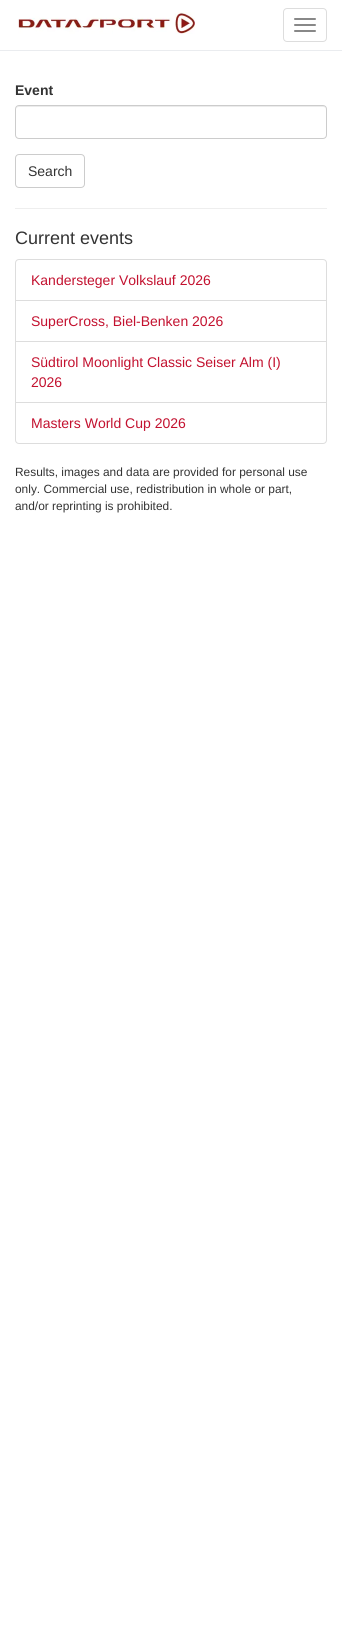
#include <cairo/cairo.h>
#include <math.h>
#include <stddef.h>

typedef struct { double x, y; const char *s; } line_t;
static cairo_t *cr;

static void rgb(unsigned color)
{
	cairo_set_source_rgb(cr, (color >> 16) / 255.0, (color >> 8 & 255) / 255.0, (color & 255) / 255.0);
}

static void rrect(double x, double y, double w, double h, double r)
{
	cairo_new_sub_path(cr);
	cairo_arc(cr, x + w - r, y + h - r, r, 0, M_PI / 2);
	cairo_arc(cr, x + r, y + h - r, r, M_PI / 2, M_PI);
	cairo_arc(cr, x + r, y + r, r, M_PI, 1.5 * M_PI);
	cairo_arc(cr, x + w - r, y + r, r, 1.5 * M_PI, 2 * M_PI);
	cairo_close_path(cr);
}

static void image(const char *path, double x, double y, double w, double h)
{
	cairo_surface_t *image = cairo_image_surface_create_from_png(path);
	cairo_save(cr);
	cairo_set_source_surface(cr, image, x, y);
	cairo_rectangle(cr, x, y, w, h);
	cairo_fill(cr);
	cairo_restore(cr);
	cairo_surface_destroy(image);
}

int main(void) {
	cairo_surface_t *surface = cairo_image_surface_create(CAIRO_FORMAT_RGB24, 342, 1649);
	cr = cairo_create(surface);
	cairo_font_options_t *options = cairo_font_options_create();
	cairo_font_options_set_hint_metrics(options, CAIRO_HINT_METRICS_OFF);
	cairo_font_options_set_hint_style(options, CAIRO_HINT_STYLE_NONE);
	cairo_set_font_options(cr, options);
	cairo_set_miter_limit(cr, 4);
	rgb(0xffffff);
	cairo_paint(cr);
	rgb(0xeaecef);
	cairo_rectangle(cr, 0, 50, 342, 1);
	cairo_fill(cr);
	image("img/1.png", 18, 12, 177, 22);
	rrect(283.5, 8.5, 43, 33, 3.5);
	rgb(0xdddddd);
	cairo_set_line_width(cr, 1);
	cairo_stroke(cr);
	rgb(0x888888);
	rrect(294, 18, 22, 2, 1);
	cairo_fill(cr);
	rrect(294, 24, 22, 2, 1);
	cairo_fill(cr);
	rrect(294, 30, 22, 2, 1);
	cairo_fill(cr);
	rgb(0xececec);
	cairo_new_path(cr);
	cairo_move_to(cr, 19, 107);
	cairo_line_to(cr, 323, 107);
	cairo_curve_to(cr, 325, 107, 326, 108, 326, 110);
	cairo_line_to(cr, 325, 107);
	cairo_line_to(cr, 324, 106);
	cairo_line_to(cr, 19, 106);
	cairo_curve_to(cr, 17, 106, 16, 108, 16, 110);
	cairo_curve_to(cr, 16, 108, 17, 107, 19, 107);
	cairo_close_path(cr);
	cairo_fill(cr);
	rrect(15.5, 105.5, 311, 33, 3.5);
	rgb(0xcccccc);
	cairo_stroke(cr);
	rrect(15.5, 154.5, 69, 33, 3.5);
	cairo_stroke(cr);
	rgb(0xeeeeee);
	cairo_rectangle(cr, 15, 208, 312, 1);
	cairo_fill(cr);
	cairo_new_path(cr);
	cairo_move_to(cr, 19, 259.5);
	cairo_line_to(cr, 323, 259.5);
	cairo_curve_to(cr, 325, 259.5, 326.5, 261, 326.5, 263);
	cairo_line_to(cr, 326.5, 300.5);
	cairo_line_to(cr, 15.5, 300.5);
	cairo_line_to(cr, 15.5, 263);
	cairo_curve_to(cr, 15.5, 261, 17, 259.5, 19, 259.5);
	cairo_close_path(cr);
	rgb(0xdddddd);
	cairo_stroke(cr);
	cairo_rectangle(cr, 15.5, 300.5, 311, 41);
	cairo_stroke(cr);
	cairo_rectangle(cr, 15.5, 341.5, 311, 61);
	cairo_stroke(cr);
	rgb(0xffffff);
	cairo_new_path(cr);
	cairo_move_to(cr, 15.5, 402.5);
	cairo_line_to(cr, 326.5, 402.5);
	cairo_line_to(cr, 326.5, 440);
	cairo_curve_to(cr, 326.5, 442, 325, 443.5, 323, 443.5);
	cairo_line_to(cr, 19, 443.5);
	cairo_curve_to(cr, 17, 443.5, 15.5, 442, 15.5, 440);
	cairo_close_path(cr);
	cairo_fill_preserve(cr);
	rgb(0xdddddd);
	cairo_stroke(cr);
	cairo_select_font_face(cr, "Liberation Sans", CAIRO_FONT_SLANT_NORMAL, CAIRO_FONT_WEIGHT_BOLD);
	cairo_set_font_size(cr, 14);
	rgb(0x333333);
	cairo_move_to(cr, 15, 95);
	cairo_show_text(cr, "Event");
	cairo_select_font_face(cr, "Liberation Sans", CAIRO_FONT_SLANT_NORMAL, CAIRO_FONT_WEIGHT_NORMAL);
	cairo_move_to(cr, 28, 176);
	cairo_show_text(cr, "Search");
	cairo_set_font_size(cr, 18);
	cairo_move_to(cr, 15, 244);
	cairo_show_text(cr, "Current events");
	cairo_set_font_size(cr, 14);
	rgb(0xc3112f);
	{
		static const line_t items[] = {
			{31, 285, "Kandersteger Volkslauf 2026"},
			{31, 326, "SuperCross, Biel-Benken 2026"},
			{31, 367, "Südtirol Moonlight Classic Seiser Alm (I)"},
			{31, 387, "2026"},
			{31, 428, "Masters World Cup 2026"},
		};
		for (size_t i = 0; i < sizeof items / sizeof *items; i++) {
			cairo_move_to(cr, items[i].x, items[i].y);
			cairo_show_text(cr, items[i].s);
		}
	}
	cairo_set_font_size(cr, 11.9);
	rgb(0x333333);
	{
		static const line_t items[] = {
			{15, 476, "Results, images and data are provided for personal use"},
			{15, 493, "only. Commercial use, redistribution in whole or part,"},
			{15, 510, "and/or reprinting is prohibited."},
		};
		for (size_t i = 0; i < sizeof items / sizeof *items; i++) {
			cairo_move_to(cr, items[i].x, items[i].y);
			cairo_show_text(cr, items[i].s);
		}
	}
	cairo_surface_write_to_png(surface, "page.png");
	cairo_font_options_destroy(options);
	cairo_destroy(cr);
	cairo_surface_destroy(surface);
	return 0;
}
